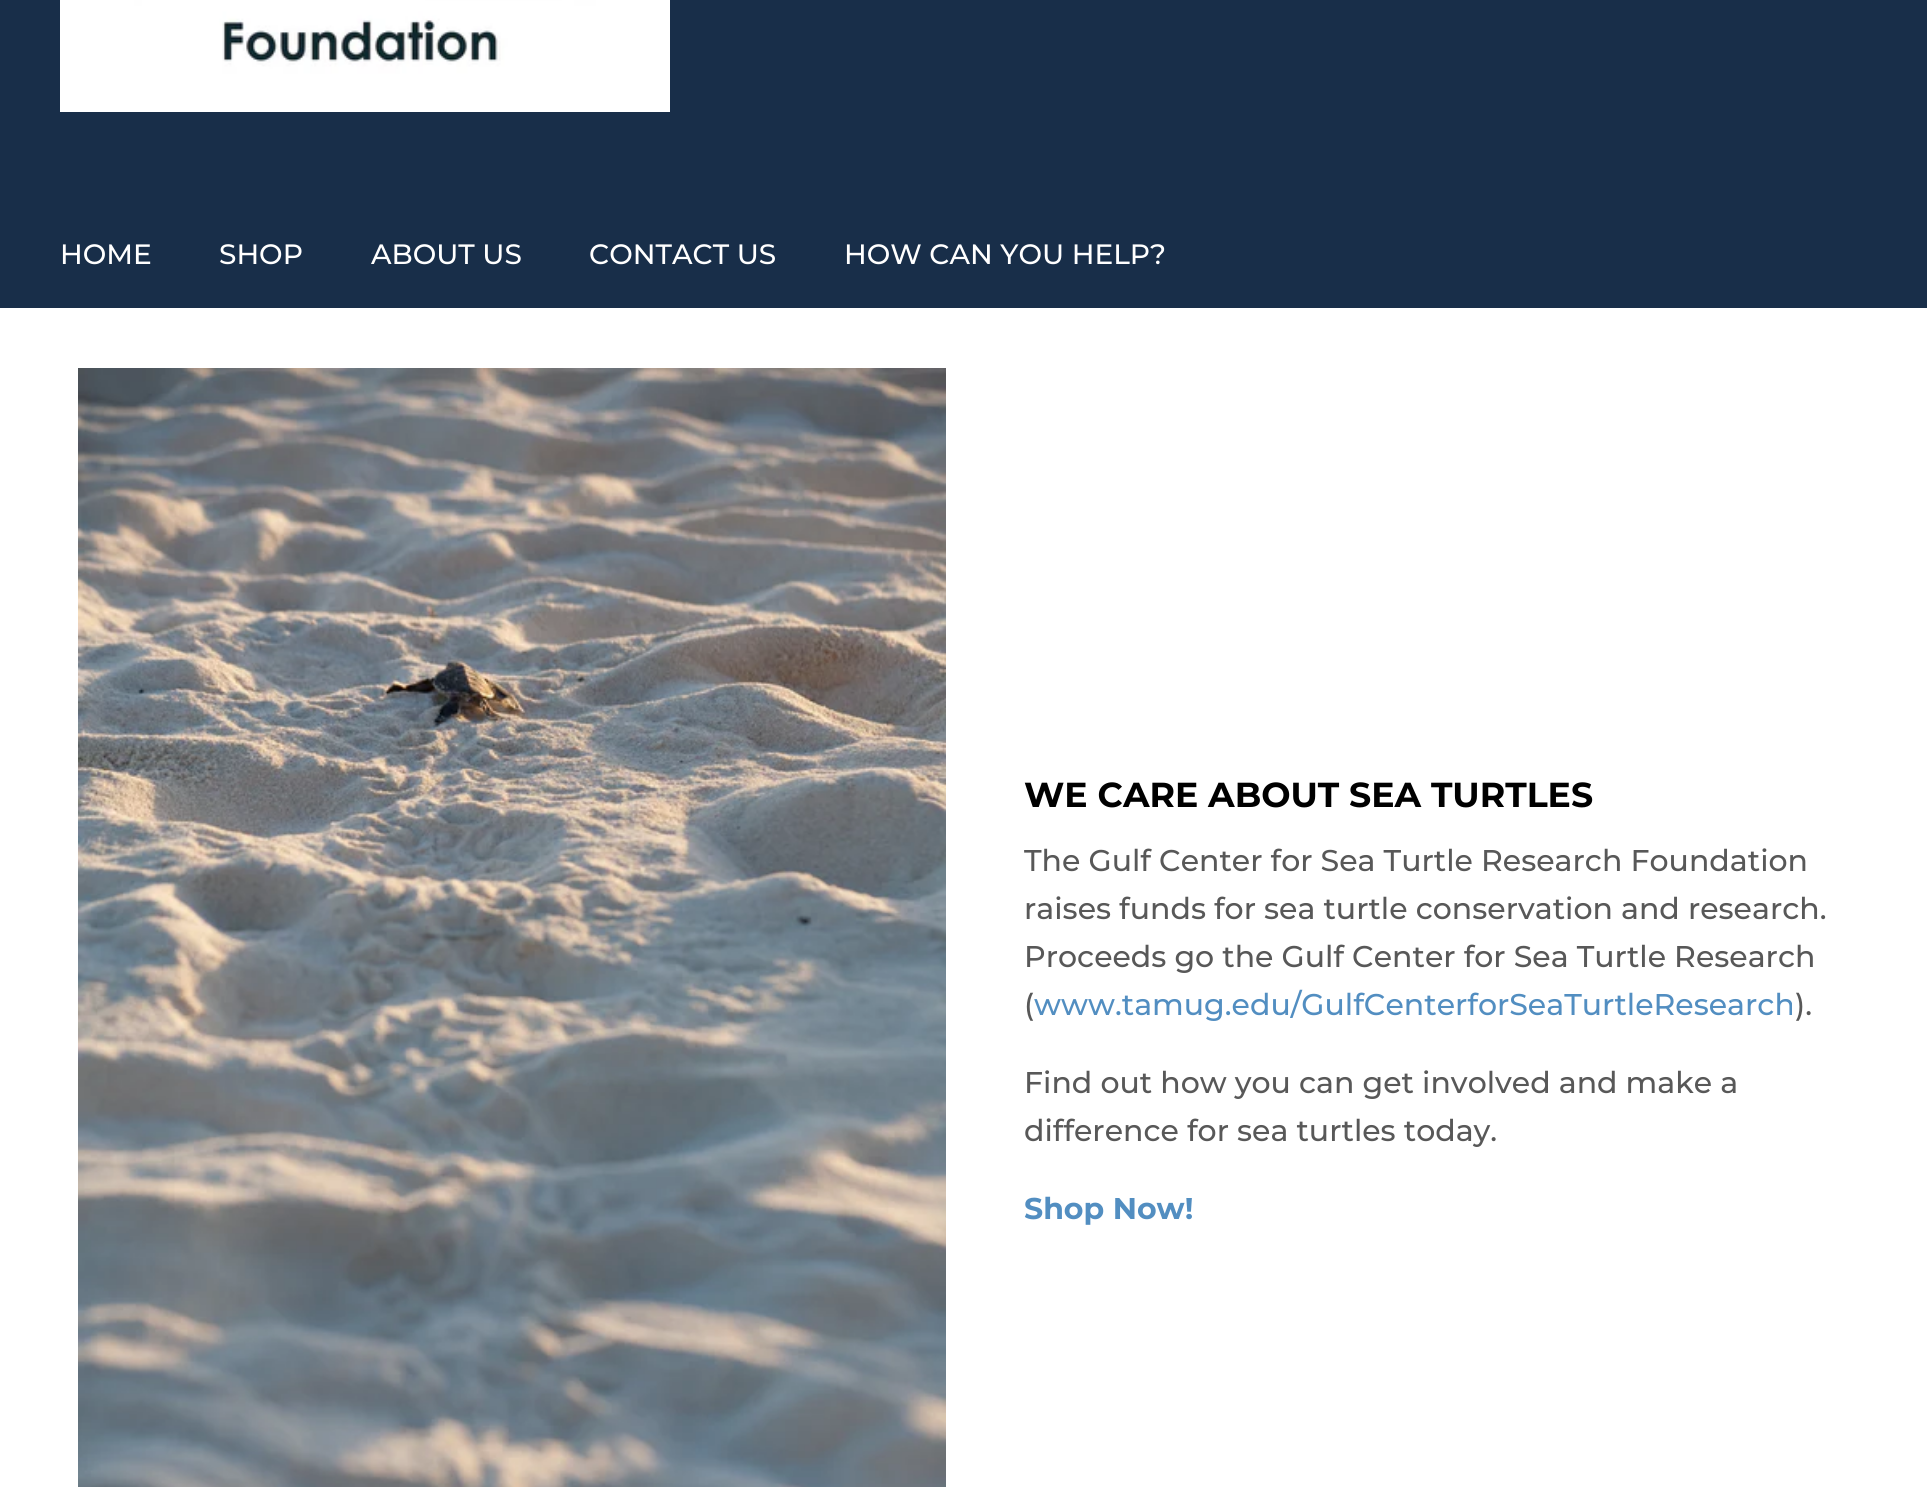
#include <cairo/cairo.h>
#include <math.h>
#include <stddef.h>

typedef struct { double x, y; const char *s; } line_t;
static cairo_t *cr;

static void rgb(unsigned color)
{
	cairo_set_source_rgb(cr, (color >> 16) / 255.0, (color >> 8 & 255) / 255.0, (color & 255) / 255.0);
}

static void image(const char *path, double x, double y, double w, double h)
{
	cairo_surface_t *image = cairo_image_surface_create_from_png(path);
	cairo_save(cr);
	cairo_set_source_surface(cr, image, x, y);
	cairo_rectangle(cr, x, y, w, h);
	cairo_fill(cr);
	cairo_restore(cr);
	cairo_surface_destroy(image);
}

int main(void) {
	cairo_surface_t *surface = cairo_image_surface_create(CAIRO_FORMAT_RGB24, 1927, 1487);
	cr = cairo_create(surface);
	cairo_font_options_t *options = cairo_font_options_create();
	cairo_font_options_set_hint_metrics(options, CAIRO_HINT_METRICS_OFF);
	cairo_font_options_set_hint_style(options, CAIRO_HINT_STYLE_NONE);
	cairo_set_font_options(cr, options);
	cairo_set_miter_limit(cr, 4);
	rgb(0xffffff);
	cairo_paint(cr);
	rgb(0x182e49);
	cairo_rectangle(cr, 0, 0, 1927, 308);
	cairo_fill(cr);
	image("img/1.png", 60, 0, 610, 112);
	image("img/2.png", 78, 368, 868, 1119);
	cairo_select_font_face(cr, "Montserrat Medium", CAIRO_FONT_SLANT_NORMAL, CAIRO_FONT_WEIGHT_NORMAL);
	cairo_set_font_size(cr, 28);
	rgb(0xffffff);
	{
		static const line_t items[] = {
			{60, 264, "HOME"},
			{219, 264, "SHOP"},
			{371, 264, "ABOUT US"},
			{589, 264, "CONTACT US"},
			{844, 264, "HOW CAN YOU HELP?"},
		};
		for (size_t i = 0; i < sizeof items / sizeof *items; i++) {
			cairo_move_to(cr, items[i].x, items[i].y);
			cairo_show_text(cr, items[i].s);
		}
	}
	cairo_select_font_face(cr, "Montserrat", CAIRO_FONT_SLANT_NORMAL, CAIRO_FONT_WEIGHT_BOLD);
	cairo_set_font_size(cr, 34.7);
	rgb(0x000000);
	cairo_move_to(cr, 1024, 807);
	cairo_show_text(cr, "WE CARE ABOUT SEA TURTLES");
	cairo_select_font_face(cr, "Montserrat Medium", CAIRO_FONT_SLANT_NORMAL, CAIRO_FONT_WEIGHT_NORMAL);
	cairo_set_font_size(cr, 30);
	rgb(0x585858);
	{
		static const line_t items[] = {
			{1024, 871, "The Gulf Center for Sea Turtle Research Foundation"},
			{1024, 919, "raises funds for sea turtle conservation and research."},
			{1024, 967, "Proceeds go the Gulf Center for Sea Turtle Research"},
			{1024, 1015, "("},
		};
		for (size_t i = 0; i < sizeof items / sizeof *items; i++) {
			cairo_move_to(cr, items[i].x, items[i].y);
			cairo_show_text(cr, items[i].s);
		}
	}
	rgb(0x528ec1);
	cairo_move_to(cr, 1034, 1015);
	cairo_show_text(cr, "www.tamug.edu/GulfCenterforSeaTurtleResearch");
	rgb(0x585858);
	{
		static const line_t items[] = {
			{1795, 1015, ")."},
			{1024, 1093, "Find out how you can get involved and make a"},
			{1024, 1141, "difference for sea turtles today."},
		};
		for (size_t i = 0; i < sizeof items / sizeof *items; i++) {
			cairo_move_to(cr, items[i].x, items[i].y);
			cairo_show_text(cr, items[i].s);
		}
	}
	cairo_select_font_face(cr, "Montserrat", CAIRO_FONT_SLANT_NORMAL, CAIRO_FONT_WEIGHT_BOLD);
	rgb(0x528ec1);
	cairo_move_to(cr, 1024, 1219);
	cairo_show_text(cr, "Shop Now!");
	cairo_surface_write_to_png(surface, "page.png");
	cairo_font_options_destroy(options);
	cairo_destroy(cr);
	cairo_surface_destroy(surface);
	return 0;
}
